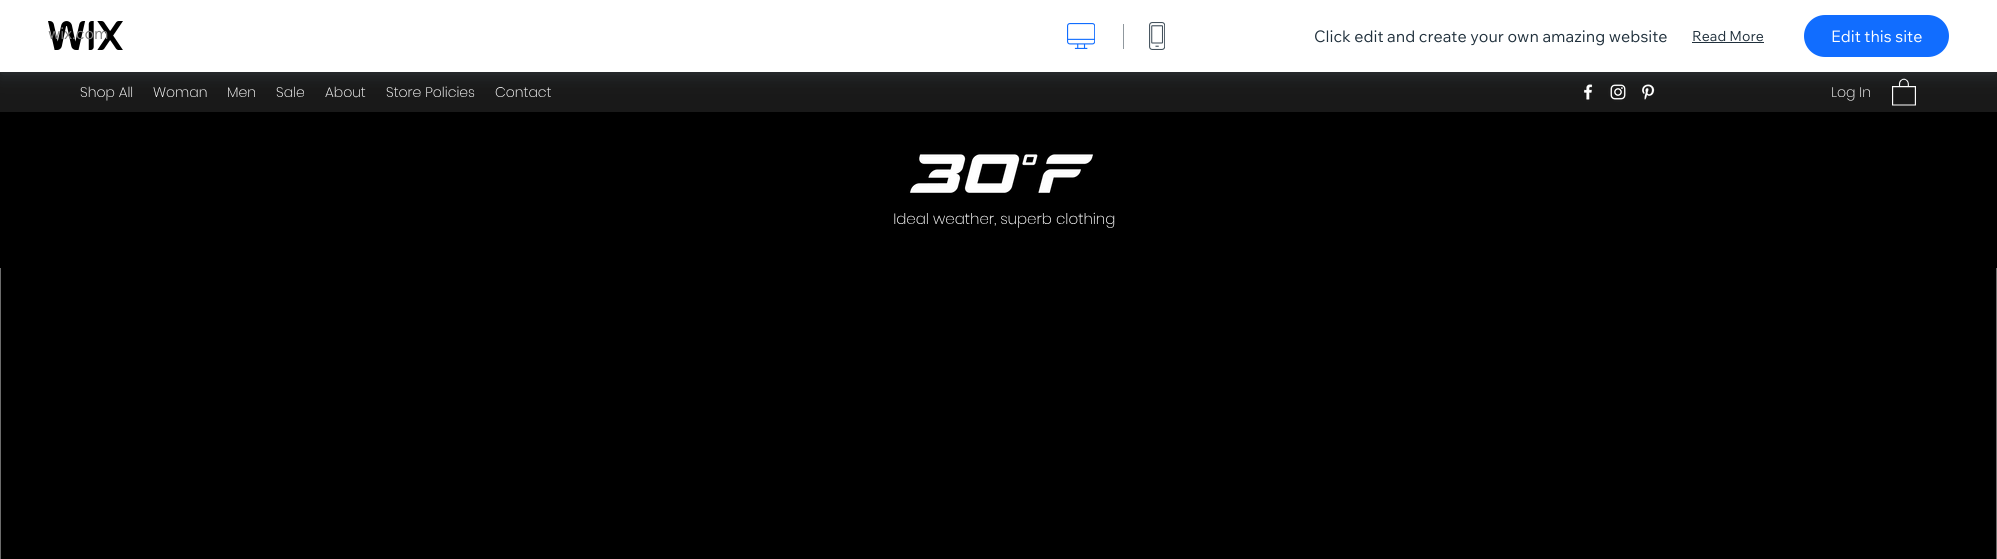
#include <cairo/cairo.h>
#include <math.h>
#include <stddef.h>

static cairo_t *cr;

static void rgb(unsigned color)
{
	cairo_set_source_rgb(cr, (color >> 16) / 255.0, (color >> 8 & 255) / 255.0, (color & 255) / 255.0);
}

static void rrect(double x, double y, double w, double h, double r)
{
	cairo_new_sub_path(cr);
	cairo_arc(cr, x + w - r, y + h - r, r, 0, M_PI / 2);
	cairo_arc(cr, x + r, y + h - r, r, M_PI / 2, M_PI);
	cairo_arc(cr, x + r, y + r, r, M_PI, 1.5 * M_PI);
	cairo_arc(cr, x + w - r, y + r, r, 1.5 * M_PI, 2 * M_PI);
	cairo_close_path(cr);
}

static void soft_shadow(double x, double y, double w, double h, double r, double blur, double alpha)
{
	cairo_push_group_with_content(cr, CAIRO_CONTENT_ALPHA);
	cairo_set_operator(cr, CAIRO_OPERATOR_SOURCE);
	for (int i = 15; i >= -15 && fmin(w, h) + blur * i / 3 > 0; i -= 2) {
		double e = blur * i / 6;
		cairo_set_source_rgba(cr, 0, 0, 0, alpha * erfc((i - 1) / 8.5) / 2);
		rrect(x - e, y - e, w + 2 * e, h + 2 * e, fmax(0, fmin(r + e + blur * .6, fmin(w, h) / 2 + e)));
		cairo_fill(cr);
	}
	cairo_pattern_t *soft = cairo_pop_group(cr);
	cairo_mask(cr, soft);
	cairo_pattern_destroy(soft);
}

static void image(const char *path, double x, double y, double w, double h)
{
	cairo_surface_t *image = cairo_image_surface_create_from_png(path);
	cairo_save(cr);
	cairo_set_source_surface(cr, image, x, y);
	cairo_rectangle(cr, x, y, w, h);
	cairo_fill(cr);
	cairo_restore(cr);
	cairo_surface_destroy(image);
}

int main(void) {
	cairo_surface_t *surface = cairo_image_surface_create(CAIRO_FORMAT_RGB24, 1997, 559);
	cr = cairo_create(surface);
	cairo_font_options_t *options = cairo_font_options_create();
	cairo_font_options_set_hint_metrics(options, CAIRO_HINT_METRICS_OFF);
	cairo_font_options_set_hint_style(options, CAIRO_HINT_STYLE_NONE);
	cairo_set_font_options(cr, options);
	cairo_set_miter_limit(cr, 4);
	rgb(0xffffff);
	cairo_paint(cr);
	image("img/4.png", 0, 72, 1997, 487);
	rgb(0x81a2b6);
	soft_shadow(0, 2, 1997, 72, 0, 9, 0.2);
	rgb(0xffffff);
	cairo_rectangle(cr, 0, 0, 1997, 72);
	cairo_fill(cr);
	image("img/1.png", 48, 21, 75, 29);
	image("img/2.png", 1067, 23, 28, 26);
	rgb(0x90989e);
	cairo_rectangle(cr, 1123, 24, 1, 25);
	cairo_fill(cr);
	image("img/3.png", 1149, 22, 16, 28);
	rgb(0x20303c);
	cairo_rectangle(cr, 1692, 42, 72, 1);
	cairo_fill(cr);
	rgb(0x116dff);
	rrect(1804, 15, 145, 42, 21);
	cairo_fill(cr);
	cairo_select_font_face(cr, "Wix Madefor Text", CAIRO_FONT_SLANT_NORMAL, CAIRO_FONT_WEIGHT_NORMAL);
	cairo_set_font_size(cr, 16);
	rgb(0x808080);
	cairo_move_to(cr, 48, 39);
	cairo_show_text(cr, "wix.com");
	rgb(0x20303c);
	cairo_move_to(cr, 1314, 42);
	cairo_show_text(cr, "Click edit and create your own amazing website");
	cairo_set_font_size(cr, 14);
	cairo_move_to(cr, 1692, 41);
	cairo_show_text(cr, "Read More");
	cairo_set_font_size(cr, 16);
	rgb(0xffffff);
	cairo_move_to(cr, 1831, 42);
	cairo_show_text(cr, "Edit this site");
	cairo_surface_write_to_png(surface, "page.png");
	cairo_font_options_destroy(options);
	cairo_destroy(cr);
	cairo_surface_destroy(surface);
	return 0;
}
